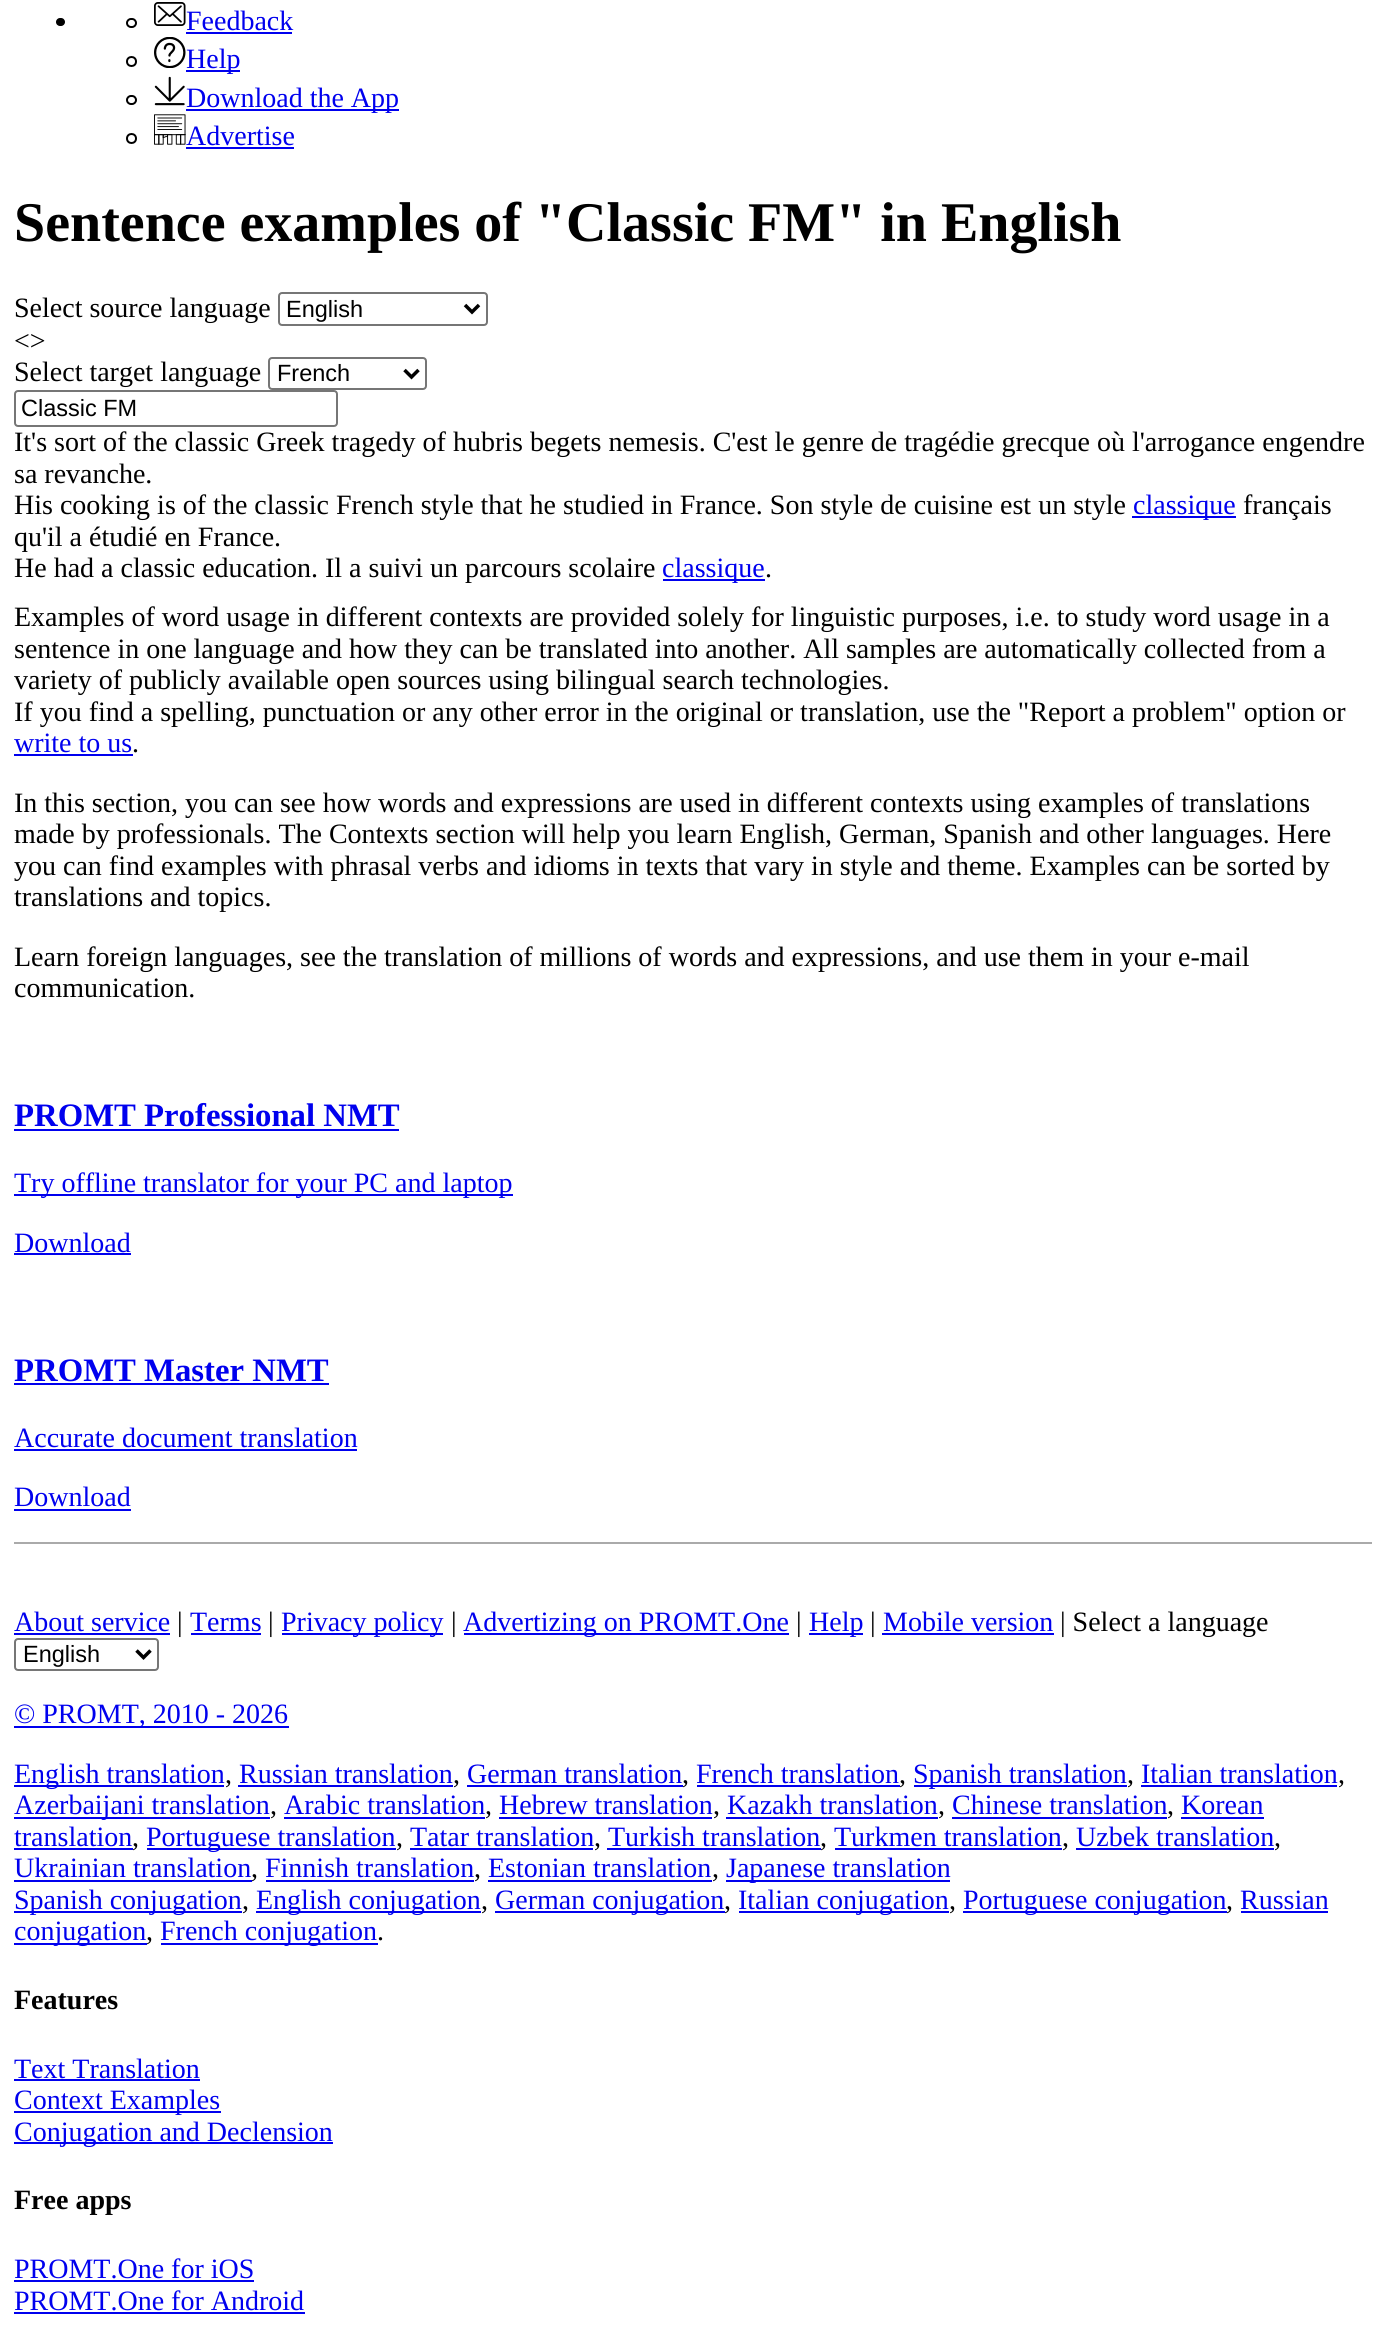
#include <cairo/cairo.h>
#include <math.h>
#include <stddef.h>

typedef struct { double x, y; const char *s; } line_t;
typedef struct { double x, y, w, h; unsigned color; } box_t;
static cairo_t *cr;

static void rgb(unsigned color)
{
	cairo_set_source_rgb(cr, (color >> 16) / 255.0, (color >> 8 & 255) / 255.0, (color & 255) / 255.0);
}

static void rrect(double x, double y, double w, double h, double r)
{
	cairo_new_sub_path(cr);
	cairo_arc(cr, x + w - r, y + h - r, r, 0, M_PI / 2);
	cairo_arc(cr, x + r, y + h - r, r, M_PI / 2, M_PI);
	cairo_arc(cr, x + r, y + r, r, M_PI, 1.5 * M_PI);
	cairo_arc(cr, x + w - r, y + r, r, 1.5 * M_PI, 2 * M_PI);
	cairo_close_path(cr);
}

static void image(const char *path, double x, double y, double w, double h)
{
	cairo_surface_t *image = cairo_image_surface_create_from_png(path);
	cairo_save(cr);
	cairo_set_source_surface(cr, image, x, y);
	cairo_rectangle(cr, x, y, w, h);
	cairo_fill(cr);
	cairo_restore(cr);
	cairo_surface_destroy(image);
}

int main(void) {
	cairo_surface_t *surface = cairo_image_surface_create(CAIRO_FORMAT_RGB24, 1386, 2331);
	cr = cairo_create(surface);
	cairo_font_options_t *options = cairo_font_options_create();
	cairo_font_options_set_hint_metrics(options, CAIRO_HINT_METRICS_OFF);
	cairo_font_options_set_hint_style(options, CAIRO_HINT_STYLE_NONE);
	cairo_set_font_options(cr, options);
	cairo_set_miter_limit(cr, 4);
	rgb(0xffffff);
	cairo_paint(cr);
	rgb(0x000000);
	rrect(56, 18, 9, 8, 4);
	cairo_fill(cr);
	rrect(127, 19, 9, 8, 4);
	cairo_stroke(cr);
	image("img/1.png", 154, 2, 32, 24);
	rgb(0x0000ee);
	cairo_rectangle(cr, 186, 32, 106, 2);
	cairo_fill(cr);
	cairo_arc(cr, 131.5, 61.5, 4.5, 0, 2 * M_PI);
	rgb(0x000000);
	cairo_stroke(cr);
	image("img/2.png", 154, 37, 32, 31);
	rgb(0x0000ee);
	cairo_rectangle(cr, 186, 70, 54, 2);
	cairo_fill(cr);
	rrect(127, 96, 9, 8, 4);
	rgb(0x000000);
	cairo_stroke(cr);
	image("img/3.png", 154, 76, 31, 30);
	rgb(0x0000ee);
	cairo_rectangle(cr, 186, 109, 213, 2);
	cairo_fill(cr);
	cairo_arc(cr, 131.5, 138.5, 4.5, 0, 2 * M_PI);
	rgb(0x000000);
	cairo_stroke(cr);
	image("img/4.png", 154, 114, 32, 31);
	rgb(0x0000ee);
	cairo_rectangle(cr, 186, 147, 108, 2);
	cairo_fill(cr);
	rrect(279, 293, 208, 32, 3);
	rgb(0x767676);
	cairo_stroke(cr);
	cairo_new_path(cr);
	cairo_move_to(cr, 465, 305);
	cairo_line_to(cr, 472, 312);
	cairo_line_to(cr, 479, 305);
	rgb(0x000000);
	cairo_set_line_width(cr, 3.5);
	cairo_stroke(cr);
	rrect(269, 358, 157, 31, 3);
	rgb(0x767676);
	cairo_set_line_width(cr, 2);
	cairo_stroke(cr);
	cairo_new_path(cr);
	cairo_move_to(cr, 404.5, 370);
	cairo_line_to(cr, 411.5, 377);
	cairo_line_to(cr, 418.5, 370);
	rgb(0x000000);
	cairo_set_line_width(cr, 3.5);
	cairo_stroke(cr);
	rrect(15, 391, 322, 35, 3);
	rgb(0x767676);
	cairo_set_line_width(cr, 2);
	cairo_stroke(cr);
	{
		static const box_t items[] = {
			{1132, 516, 104, 2, 0x0000ee},
			{663, 579, 102, 2, 0x0000ee},
			{14, 754, 119, 2, 0x0000ee},
			{14, 1129, 385, 2, 0x0000ee},
			{14, 1194, 499, 2, 0x0000ee},
			{14, 1253, 117, 2, 0x0000ee},
			{14, 1383, 315, 2, 0x0000ee},
			{14, 1449, 343, 2, 0x0000ee},
			{14, 1509, 117, 2, 0x0000ee},
			{14, 1542, 1358, 2, 0xaaaaaa},
			{14, 1633, 156, 2, 0x0000ee},
			{191, 1633, 70, 2, 0x0000ee},
			{282, 1633, 161, 2, 0x0000ee},
			{464, 1633, 325, 2, 0x0000ee},
			{809, 1633, 54, 2, 0x0000ee},
			{882, 1633, 172, 2, 0x0000ee},
		};
		for (size_t i = 0; i < sizeof items / sizeof *items; i++) {
			rgb(items[i].color);
			cairo_rectangle(cr, items[i].x, items[i].y, items[i].w, items[i].h);
			cairo_fill(cr);
		}
	}
	rrect(15, 1639, 143, 31, 3);
	rgb(0x767676);
	cairo_stroke(cr);
	cairo_new_path(cr);
	cairo_move_to(cr, 136.5, 1650.5);
	cairo_line_to(cr, 143.5, 1657.5);
	cairo_line_to(cr, 150.5, 1650.5);
	rgb(0x000000);
	cairo_set_line_width(cr, 3.5);
	cairo_stroke(cr);
	{
		static const box_t items[] = {
			{14, 1726, 275, 2, 0x0000ee},
			{14, 1785, 210, 2, 0x0000ee},
			{238, 1785, 215, 2, 0x0000ee},
			{467, 1785, 216, 2, 0x0000ee},
			{697, 1785, 203, 2, 0x0000ee},
			{914, 1785, 213, 2, 0x0000ee},
			{1141, 1785, 196, 2, 0x0000ee},
			{14, 1817, 256, 2, 0x0000ee},
			{284, 1817, 201, 2, 0x0000ee},
			{499, 1817, 213, 2, 0x0000ee},
			{726, 1817, 212, 2, 0x0000ee},
			{952, 1817, 215, 2, 0x0000ee},
			{1181, 1817, 83, 2, 0x0000ee},
			{14, 1848, 119, 2, 0x0000ee},
			{147, 1848, 249, 2, 0x0000ee},
			{410, 1848, 183, 2, 0x0000ee},
			{607, 1848, 214, 2, 0x0000ee},
			{835, 1848, 227, 2, 0x0000ee},
			{1076, 1848, 198, 2, 0x0000ee},
			{14, 1880, 238, 2, 0x0000ee},
			{266, 1880, 208, 2, 0x0000ee},
			{488, 1880, 224, 2, 0x0000ee},
			{726, 1880, 224, 2, 0x0000ee},
			{14, 1911, 228, 2, 0x0000ee},
			{256, 1911, 225, 2, 0x0000ee},
			{495, 1911, 230, 2, 0x0000ee},
			{739, 1911, 210, 2, 0x0000ee},
			{963, 1911, 264, 2, 0x0000ee},
			{1241, 1911, 87, 2, 0x0000ee},
			{14, 1943, 133, 2, 0x0000ee},
			{161, 1943, 217, 2, 0x0000ee},
			{14, 2079, 186, 2, 0x0000ee},
			{14, 2111, 207, 2, 0x0000ee},
			{14, 2142, 319, 2, 0x0000ee},
			{14, 2280, 240, 2, 0x0000ee},
			{14, 2312, 291, 2, 0x0000ee},
		};
		for (size_t i = 0; i < sizeof items / sizeof *items; i++) {
			rgb(items[i].color);
			cairo_rectangle(cr, items[i].x, items[i].y, items[i].w, items[i].h);
			cairo_fill(cr);
		}
	}
	cairo_select_font_face(cr, "Liberation Serif", CAIRO_FONT_SLANT_NORMAL, CAIRO_FONT_WEIGHT_NORMAL);
	cairo_set_font_size(cr, 28);
	{
		static const line_t items[] = {
			{186, 30, "Feedback"},
			{186, 68, "Help"},
			{186, 107, "Download the App"},
			{186, 145, "Advertise"},
		};
		for (size_t i = 0; i < sizeof items / sizeof *items; i++) {
			cairo_move_to(cr, items[i].x, items[i].y);
			cairo_show_text(cr, items[i].s);
		}
	}
	cairo_select_font_face(cr, "Liberation Serif", CAIRO_FONT_SLANT_NORMAL, CAIRO_FONT_WEIGHT_BOLD);
	cairo_set_font_size(cr, 56);
	rgb(0x000000);
	cairo_move_to(cr, 14, 241);
	cairo_show_text(cr, "Sentence examples of \"Classic FM\" in English");
	cairo_select_font_face(cr, "Liberation Serif", CAIRO_FONT_SLANT_NORMAL, CAIRO_FONT_WEIGHT_NORMAL);
	cairo_set_font_size(cr, 28);
	cairo_move_to(cr, 14, 317);
	cairo_show_text(cr, "Select source language");
	cairo_select_font_face(cr, "Liberation Sans", CAIRO_FONT_SLANT_NORMAL, CAIRO_FONT_WEIGHT_NORMAL);
	cairo_set_font_size(cr, 23.5);
	cairo_move_to(cr, 286, 317);
	cairo_show_text(cr, "English");
	cairo_select_font_face(cr, "Liberation Serif", CAIRO_FONT_SLANT_NORMAL, CAIRO_FONT_WEIGHT_NORMAL);
	cairo_set_font_size(cr, 28);
	cairo_move_to(cr, 14, 350);
	cairo_show_text(cr, "<>");
	cairo_move_to(cr, 14, 381);
	cairo_show_text(cr, "Select target language");
	cairo_select_font_face(cr, "Liberation Sans", CAIRO_FONT_SLANT_NORMAL, CAIRO_FONT_WEIGHT_NORMAL);
	cairo_set_font_size(cr, 23.5);
	cairo_move_to(cr, 277, 381);
	cairo_show_text(cr, "French");
	cairo_move_to(cr, 21, 416);
	cairo_show_text(cr, "Classic FM");
	cairo_select_font_face(cr, "Liberation Serif", CAIRO_FONT_SLANT_NORMAL, CAIRO_FONT_WEIGHT_NORMAL);
	cairo_set_font_size(cr, 28);
	{
		static const line_t items[] = {
			{14, 451, "It's sort of the classic Greek tragedy of hubris begets nemesis. C'est le genre de tragédie grecque où l'arrogance engendre"},
			{14, 483, "sa revanche."},
			{14, 514, "His cooking is of the classic French style that he studied in France. Son style de cuisine est un style"},
		};
		for (size_t i = 0; i < sizeof items / sizeof *items; i++) {
			cairo_move_to(cr, items[i].x, items[i].y);
			cairo_show_text(cr, items[i].s);
		}
	}
	rgb(0x0000ee);
	cairo_move_to(cr, 1133, 514);
	cairo_show_text(cr, "classique");
	rgb(0x000000);
	{
		static const line_t items[] = {
			{1243, 514, "français"},
			{14, 546, "qu'il a étudié en France."},
			{14, 577, "He had a classic education. Il a suivi un parcours scolaire"},
		};
		for (size_t i = 0; i < sizeof items / sizeof *items; i++) {
			cairo_move_to(cr, items[i].x, items[i].y);
			cairo_show_text(cr, items[i].s);
		}
	}
	rgb(0x0000ee);
	cairo_move_to(cr, 662, 577);
	cairo_show_text(cr, "classique");
	rgb(0x000000);
	{
		static const line_t items[] = {
			{765, 577, "."},
			{14, 626, "Examples of word usage in different contexts are provided solely for linguistic purposes, i.e. to study word usage in a"},
			{14, 658, "sentence in one language and how they can be translated into another. All samples are automatically collected from a"},
			{14, 689, "variety of publicly available open sources using bilingual search technologies."},
			{14, 721, "If you find a spelling, punctuation or any other error in the original or translation, use the \"Report a problem\" option or"},
		};
		for (size_t i = 0; i < sizeof items / sizeof *items; i++) {
			cairo_move_to(cr, items[i].x, items[i].y);
			cairo_show_text(cr, items[i].s);
		}
	}
	rgb(0x0000ee);
	cairo_move_to(cr, 14, 752);
	cairo_show_text(cr, "write to us");
	rgb(0x000000);
	{
		static const line_t items[] = {
			{132, 752, "."},
			{14, 812, "In this section, you can see how words and expressions are used in different contexts using examples of translations"},
			{14, 843, "made by professionals. The Contexts section will help you learn English, German, Spanish and other languages. Here"},
			{14, 875, "you can find examples with phrasal verbs and idioms in texts that vary in style and theme. Examples can be sorted by"},
			{14, 906, "translations and topics."},
			{14, 966, "Learn foreign languages, see the translation of millions of words and expressions, and use them in your e-mail"},
			{14, 997, "communication."},
		};
		for (size_t i = 0; i < sizeof items / sizeof *items; i++) {
			cairo_move_to(cr, items[i].x, items[i].y);
			cairo_show_text(cr, items[i].s);
		}
	}
	cairo_select_font_face(cr, "Liberation Serif", CAIRO_FONT_SLANT_NORMAL, CAIRO_FONT_WEIGHT_BOLD);
	cairo_set_font_size(cr, 32.75);
	rgb(0x0000ee);
	cairo_move_to(cr, 14, 1126);
	cairo_show_text(cr, "PROMT Professional NMT");
	cairo_select_font_face(cr, "Liberation Serif", CAIRO_FONT_SLANT_NORMAL, CAIRO_FONT_WEIGHT_NORMAL);
	cairo_set_font_size(cr, 28);
	cairo_move_to(cr, 14, 1192);
	cairo_show_text(cr, "Try offline translator for your PC and laptop");
	cairo_move_to(cr, 14, 1252);
	cairo_show_text(cr, "Download");
	cairo_select_font_face(cr, "Liberation Serif", CAIRO_FONT_SLANT_NORMAL, CAIRO_FONT_WEIGHT_BOLD);
	cairo_set_font_size(cr, 32.75);
	cairo_move_to(cr, 14, 1381);
	cairo_show_text(cr, "PROMT Master NMT");
	cairo_select_font_face(cr, "Liberation Serif", CAIRO_FONT_SLANT_NORMAL, CAIRO_FONT_WEIGHT_NORMAL);
	cairo_set_font_size(cr, 28);
	{
		static const line_t items[] = {
			{14, 1447, "Accurate document translation"},
			{14, 1506, "Download"},
			{14, 1631, "About service"},
		};
		for (size_t i = 0; i < sizeof items / sizeof *items; i++) {
			cairo_move_to(cr, items[i].x, items[i].y);
			cairo_show_text(cr, items[i].s);
		}
	}
	rgb(0x000000);
	cairo_move_to(cr, 177, 1631);
	cairo_show_text(cr, "|");
	rgb(0x0000ee);
	cairo_move_to(cr, 190, 1631);
	cairo_show_text(cr, "Terms");
	rgb(0x000000);
	cairo_move_to(cr, 268, 1631);
	cairo_show_text(cr, "|");
	rgb(0x0000ee);
	cairo_move_to(cr, 281, 1631);
	cairo_show_text(cr, "Privacy policy");
	rgb(0x000000);
	cairo_move_to(cr, 451, 1631);
	cairo_show_text(cr, "|");
	rgb(0x0000ee);
	cairo_move_to(cr, 463, 1631);
	cairo_show_text(cr, "Advertizing on PROMT.One");
	rgb(0x000000);
	cairo_move_to(cr, 796, 1631);
	cairo_show_text(cr, "|");
	rgb(0x0000ee);
	cairo_move_to(cr, 809, 1631);
	cairo_show_text(cr, "Help");
	rgb(0x000000);
	cairo_move_to(cr, 870, 1631);
	cairo_show_text(cr, "|");
	rgb(0x0000ee);
	cairo_move_to(cr, 883, 1631);
	cairo_show_text(cr, "Mobile version");
	rgb(0x000000);
	cairo_move_to(cr, 1060, 1631);
	cairo_show_text(cr, "| Select a language");
	cairo_select_font_face(cr, "Liberation Sans", CAIRO_FONT_SLANT_NORMAL, CAIRO_FONT_WEIGHT_NORMAL);
	cairo_set_font_size(cr, 23.5);
	cairo_move_to(cr, 23, 1662);
	cairo_show_text(cr, "English");
	cairo_select_font_face(cr, "Liberation Serif", CAIRO_FONT_SLANT_NORMAL, CAIRO_FONT_WEIGHT_NORMAL);
	cairo_set_font_size(cr, 28);
	rgb(0x0000ee);
	cairo_move_to(cr, 14, 1723);
	cairo_show_text(cr, "© PROMT, 2010 - 2026");
	cairo_move_to(cr, 14, 1783);
	cairo_show_text(cr, "English translation");
	rgb(0x000000);
	cairo_move_to(cr, 225, 1783);
	cairo_show_text(cr, ",");
	rgb(0x0000ee);
	cairo_move_to(cr, 239, 1783);
	cairo_show_text(cr, "Russian translation");
	rgb(0x000000);
	cairo_move_to(cr, 453, 1783);
	cairo_show_text(cr, ",");
	rgb(0x0000ee);
	cairo_move_to(cr, 467, 1783);
	cairo_show_text(cr, "German translation");
	rgb(0x000000);
	cairo_move_to(cr, 682, 1783);
	cairo_show_text(cr, ",");
	rgb(0x0000ee);
	cairo_move_to(cr, 696, 1783);
	cairo_show_text(cr, "French translation");
	rgb(0x000000);
	cairo_move_to(cr, 899, 1783);
	cairo_show_text(cr, ",");
	rgb(0x0000ee);
	cairo_move_to(cr, 913, 1783);
	cairo_show_text(cr, "Spanish translation");
	rgb(0x000000);
	cairo_move_to(cr, 1127, 1783);
	cairo_show_text(cr, ",");
	rgb(0x0000ee);
	cairo_move_to(cr, 1141, 1783);
	cairo_show_text(cr, "Italian translation");
	rgb(0x000000);
	cairo_move_to(cr, 1338, 1783);
	cairo_show_text(cr, ",");
	rgb(0x0000ee);
	cairo_move_to(cr, 14, 1814);
	cairo_show_text(cr, "Azerbaijani translation");
	rgb(0x000000);
	cairo_move_to(cr, 270, 1814);
	cairo_show_text(cr, ",");
	rgb(0x0000ee);
	cairo_move_to(cr, 284, 1814);
	cairo_show_text(cr, "Arabic translation");
	rgb(0x000000);
	cairo_move_to(cr, 485, 1814);
	cairo_show_text(cr, ",");
	rgb(0x0000ee);
	cairo_move_to(cr, 499, 1814);
	cairo_show_text(cr, "Hebrew translation");
	rgb(0x000000);
	cairo_move_to(cr, 713, 1814);
	cairo_show_text(cr, ",");
	rgb(0x0000ee);
	cairo_move_to(cr, 727, 1814);
	cairo_show_text(cr, "Kazakh translation");
	rgb(0x000000);
	cairo_move_to(cr, 938, 1814);
	cairo_show_text(cr, ",");
	rgb(0x0000ee);
	cairo_move_to(cr, 952, 1814);
	cairo_show_text(cr, "Chinese translation");
	rgb(0x000000);
	cairo_move_to(cr, 1167, 1814);
	cairo_show_text(cr, ",");
	rgb(0x0000ee);
	cairo_move_to(cr, 1181, 1814);
	cairo_show_text(cr, "Korean");
	cairo_move_to(cr, 14, 1846);
	cairo_show_text(cr, "translation");
	rgb(0x000000);
	cairo_move_to(cr, 132, 1846);
	cairo_show_text(cr, ",");
	rgb(0x0000ee);
	cairo_move_to(cr, 146, 1846);
	cairo_show_text(cr, "Portuguese translation");
	rgb(0x000000);
	cairo_move_to(cr, 396, 1846);
	cairo_show_text(cr, ",");
	rgb(0x0000ee);
	cairo_move_to(cr, 410, 1846);
	cairo_show_text(cr, "Tatar translation");
	rgb(0x000000);
	cairo_move_to(cr, 594, 1846);
	cairo_show_text(cr, ",");
	rgb(0x0000ee);
	cairo_move_to(cr, 608, 1846);
	cairo_show_text(cr, "Turkish translation");
	rgb(0x000000);
	cairo_move_to(cr, 820, 1846);
	cairo_show_text(cr, ",");
	rgb(0x0000ee);
	cairo_move_to(cr, 834, 1846);
	cairo_show_text(cr, "Turkmen translation");
	rgb(0x000000);
	cairo_move_to(cr, 1062, 1846);
	cairo_show_text(cr, ",");
	rgb(0x0000ee);
	cairo_move_to(cr, 1076, 1846);
	cairo_show_text(cr, "Uzbek translation");
	rgb(0x000000);
	cairo_move_to(cr, 1274, 1846);
	cairo_show_text(cr, ",");
	rgb(0x0000ee);
	cairo_move_to(cr, 14, 1877);
	cairo_show_text(cr, "Ukrainian translation");
	rgb(0x000000);
	cairo_move_to(cr, 251, 1877);
	cairo_show_text(cr, ",");
	rgb(0x0000ee);
	cairo_move_to(cr, 265, 1877);
	cairo_show_text(cr, "Finnish translation");
	rgb(0x000000);
	cairo_move_to(cr, 474, 1877);
	cairo_show_text(cr, ",");
	rgb(0x0000ee);
	cairo_move_to(cr, 488, 1877);
	cairo_show_text(cr, "Estonian translation");
	rgb(0x000000);
	cairo_move_to(cr, 712, 1877);
	cairo_show_text(cr, ",");
	rgb(0x0000ee);
	cairo_move_to(cr, 726, 1877);
	cairo_show_text(cr, "Japanese translation");
	cairo_move_to(cr, 14, 1909);
	cairo_show_text(cr, "Spanish conjugation");
	rgb(0x000000);
	cairo_move_to(cr, 242, 1909);
	cairo_show_text(cr, ",");
	rgb(0x0000ee);
	cairo_move_to(cr, 256, 1909);
	cairo_show_text(cr, "English conjugation");
	rgb(0x000000);
	cairo_move_to(cr, 481, 1909);
	cairo_show_text(cr, ",");
	rgb(0x0000ee);
	cairo_move_to(cr, 495, 1909);
	cairo_show_text(cr, "German conjugation");
	rgb(0x000000);
	cairo_move_to(cr, 724, 1909);
	cairo_show_text(cr, ",");
	rgb(0x0000ee);
	cairo_move_to(cr, 738, 1909);
	cairo_show_text(cr, "Italian conjugation");
	rgb(0x000000);
	cairo_move_to(cr, 949, 1909);
	cairo_show_text(cr, ",");
	rgb(0x0000ee);
	cairo_move_to(cr, 963, 1909);
	cairo_show_text(cr, "Portuguese conjugation");
	rgb(0x000000);
	cairo_move_to(cr, 1226, 1909);
	cairo_show_text(cr, ",");
	rgb(0x0000ee);
	cairo_move_to(cr, 1240, 1909);
	cairo_show_text(cr, "Russian");
	cairo_move_to(cr, 14, 1940);
	cairo_show_text(cr, "conjugation");
	rgb(0x000000);
	cairo_move_to(cr, 146, 1940);
	cairo_show_text(cr, ",");
	rgb(0x0000ee);
	cairo_move_to(cr, 160, 1940);
	cairo_show_text(cr, "French conjugation");
	rgb(0x000000);
	cairo_move_to(cr, 377, 1940);
	cairo_show_text(cr, ".");
	cairo_select_font_face(cr, "Liberation Serif", CAIRO_FONT_SLANT_NORMAL, CAIRO_FONT_WEIGHT_BOLD);
	cairo_move_to(cr, 14, 2009);
	cairo_show_text(cr, "Features");
	cairo_select_font_face(cr, "Liberation Serif", CAIRO_FONT_SLANT_NORMAL, CAIRO_FONT_WEIGHT_NORMAL);
	rgb(0x0000ee);
	{
		static const line_t items[] = {
			{14, 2078, "Text Translation"},
			{14, 2109, "Context Examples"},
			{14, 2141, "Conjugation and Declension"},
		};
		for (size_t i = 0; i < sizeof items / sizeof *items; i++) {
			cairo_move_to(cr, items[i].x, items[i].y);
			cairo_show_text(cr, items[i].s);
		}
	}
	cairo_select_font_face(cr, "Liberation Serif", CAIRO_FONT_SLANT_NORMAL, CAIRO_FONT_WEIGHT_BOLD);
	rgb(0x000000);
	cairo_move_to(cr, 14, 2209);
	cairo_show_text(cr, "Free apps");
	cairo_select_font_face(cr, "Liberation Serif", CAIRO_FONT_SLANT_NORMAL, CAIRO_FONT_WEIGHT_NORMAL);
	rgb(0x0000ee);
	cairo_move_to(cr, 14, 2278);
	cairo_show_text(cr, "PROMT.One for iOS");
	cairo_move_to(cr, 14, 2310);
	cairo_show_text(cr, "PROMT.One for Android");
	cairo_surface_write_to_png(surface, "page.png");
	cairo_font_options_destroy(options);
	cairo_destroy(cr);
	cairo_surface_destroy(surface);
	return 0;
}
